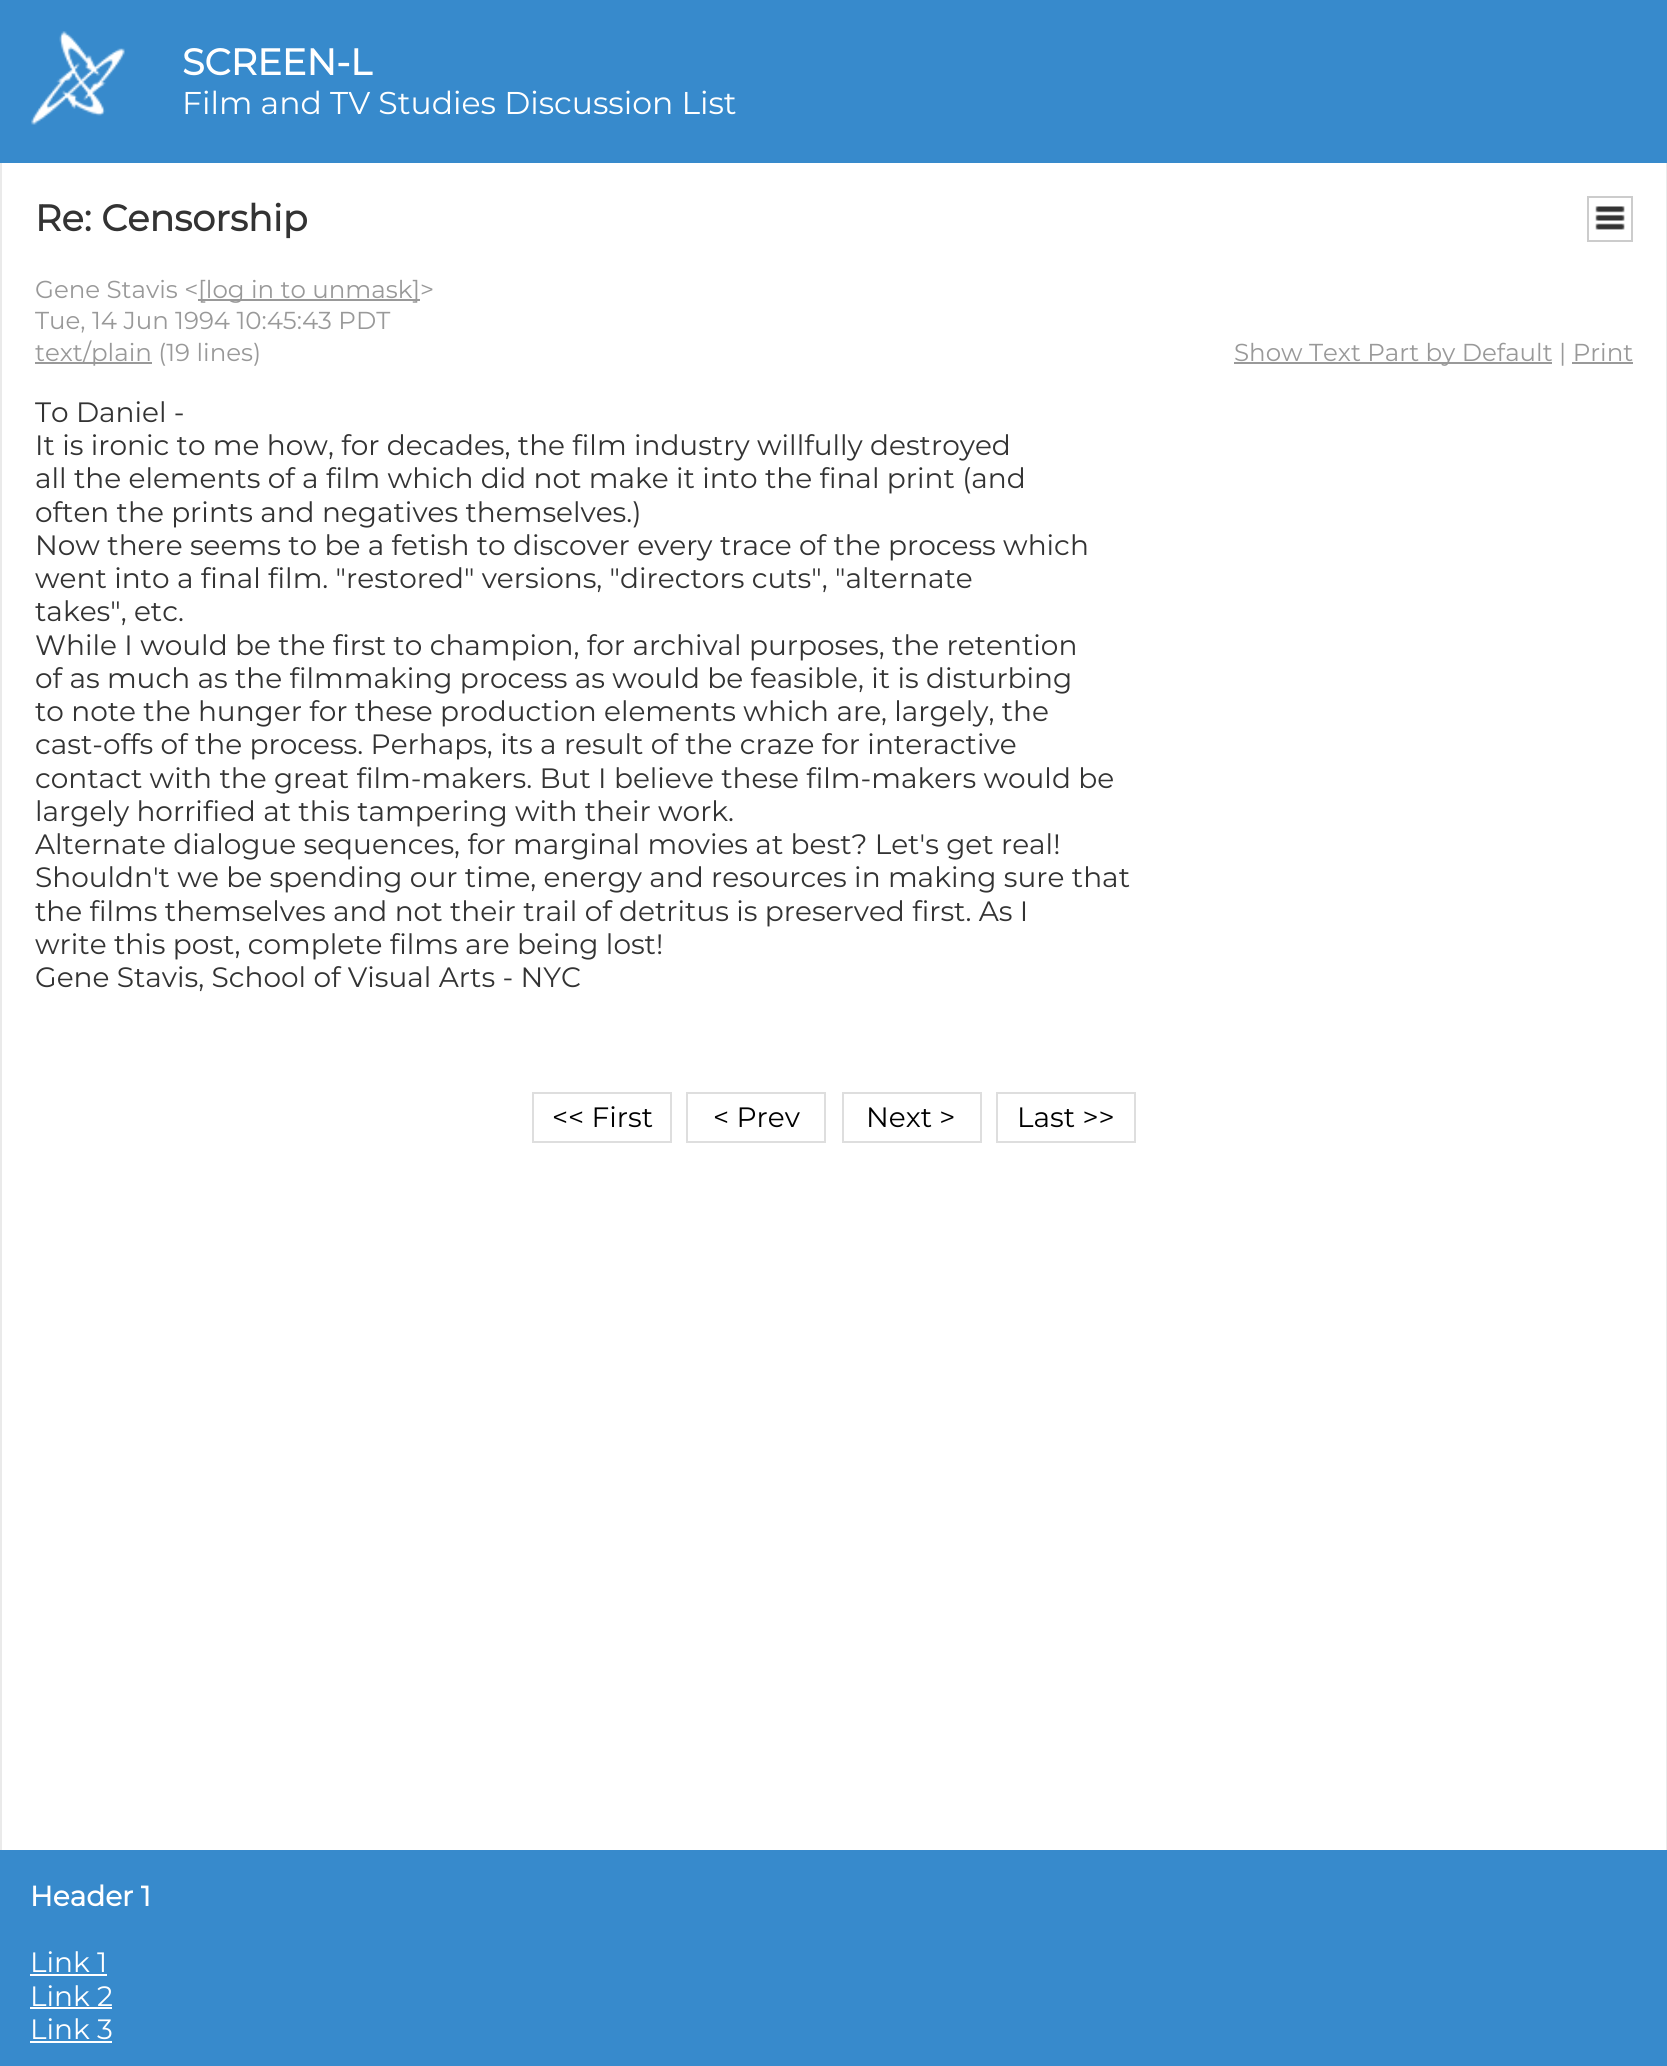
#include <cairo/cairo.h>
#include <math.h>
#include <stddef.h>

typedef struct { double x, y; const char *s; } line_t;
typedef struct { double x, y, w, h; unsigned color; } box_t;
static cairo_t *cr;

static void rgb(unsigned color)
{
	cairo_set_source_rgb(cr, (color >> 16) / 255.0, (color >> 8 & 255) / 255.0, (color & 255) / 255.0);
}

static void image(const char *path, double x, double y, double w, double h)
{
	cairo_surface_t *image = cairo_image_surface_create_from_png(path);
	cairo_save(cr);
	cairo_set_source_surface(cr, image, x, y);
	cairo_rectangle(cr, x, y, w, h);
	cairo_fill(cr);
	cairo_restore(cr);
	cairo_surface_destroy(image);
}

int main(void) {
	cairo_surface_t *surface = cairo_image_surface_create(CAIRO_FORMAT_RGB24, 1667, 2066);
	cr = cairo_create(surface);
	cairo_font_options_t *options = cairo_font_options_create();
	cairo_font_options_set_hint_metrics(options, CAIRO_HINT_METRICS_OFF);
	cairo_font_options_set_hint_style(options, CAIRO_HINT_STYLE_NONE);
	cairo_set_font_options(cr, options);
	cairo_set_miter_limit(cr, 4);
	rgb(0x378acc);
	cairo_paint(cr);
	image("img/1.png", 31, 31, 94, 94);
	{
		static const box_t items[] = {
			{2, 163, 1664, 1687, 0xffffff},
			{1666, 163, 1, 1687, 0xeaeaea},
			{0, 163, 2, 1687, 0xeaeaea},
		};
		for (size_t i = 0; i < sizeof items / sizeof *items; i++) {
			rgb(items[i].color);
			cairo_rectangle(cr, items[i].x, items[i].y, items[i].w, items[i].h);
			cairo_fill(cr);
		}
	}
	cairo_rectangle(cr, 1588, 197, 44, 44);
	rgb(0xcccccc);
	cairo_stroke(cr);
	image("img/2.png", 1595, 206, 30, 24);
	{
		static const box_t items[] = {
			{198, 299, 222, 2, 0x999999},
			{35, 362, 117, 2, 0x999999},
			{1234, 362, 318, 2, 0x999999},
			{1572, 362, 61, 2, 0x999999},
		};
		for (size_t i = 0; i < sizeof items / sizeof *items; i++) {
			rgb(items[i].color);
			cairo_rectangle(cr, items[i].x, items[i].y, items[i].w, items[i].h);
			cairo_fill(cr);
		}
	}
	cairo_rectangle(cr, 533, 1093, 138, 49);
	rgb(0xdedede);
	cairo_stroke(cr);
	cairo_rectangle(cr, 687, 1093, 138, 49);
	cairo_stroke(cr);
	cairo_rectangle(cr, 843, 1093, 138, 49);
	cairo_stroke(cr);
	cairo_rectangle(cr, 997, 1093, 138, 49);
	cairo_stroke(cr);
	{
		static const box_t items[] = {
			{30, 1974, 77, 2, 0xffffff},
			{30, 2007, 82, 2, 0xffffff},
			{30, 2041, 82, 2, 0xffffff},
		};
		for (size_t i = 0; i < sizeof items / sizeof *items; i++) {
			rgb(items[i].color);
			cairo_rectangle(cr, items[i].x, items[i].y, items[i].w, items[i].h);
			cairo_fill(cr);
		}
	}
	cairo_select_font_face(cr, "Montserrat", CAIRO_FONT_SLANT_NORMAL, CAIRO_FONT_WEIGHT_BOLD);
	cairo_set_font_size(cr, 36.75);
	cairo_move_to(cr, 182, 75);
	cairo_show_text(cr, "SCREEN-L");
	cairo_select_font_face(cr, "Montserrat Thin", CAIRO_FONT_SLANT_NORMAL, CAIRO_FONT_WEIGHT_NORMAL);
	cairo_set_font_size(cr, 31.5);
	cairo_move_to(cr, 182, 114);
	cairo_show_text(cr, "Film and TV Studies Discussion List");
	cairo_select_font_face(cr, "Montserrat", CAIRO_FONT_SLANT_NORMAL, CAIRO_FONT_WEIGHT_BOLD);
	cairo_set_font_size(cr, 36.75);
	rgb(0x333333);
	cairo_move_to(cr, 35, 231);
	cairo_show_text(cr, "Re: Censorship");
	cairo_select_font_face(cr, "Montserrat Thin", CAIRO_FONT_SLANT_NORMAL, CAIRO_FONT_WEIGHT_NORMAL);
	cairo_set_font_size(cr, 24.5);
	rgb(0x999999);
	{
		static const line_t items[] = {
			{35, 298, "Gene Stavis <"},
			{198, 298, "[log in to unmask]>"},
			{35, 329, "Tue, 14 Jun 1994 10:45:43 PDT"},
			{35, 361, "text/plain (19 lines)"},
			{1234, 361, "Show Text Part by Default | Print"},
		};
		for (size_t i = 0; i < sizeof items / sizeof *items; i++) {
			cairo_move_to(cr, items[i].x, items[i].y);
			cairo_show_text(cr, items[i].s);
		}
	}
	cairo_set_font_size(cr, 28);
	rgb(0x333333);
	{
		static const line_t items[] = {
			{35, 422, "To Daniel -"},
			{35, 455, "It is ironic to me how, for decades, the film industry willfully destroyed"},
			{35, 488, "all the elements of a film which did not make it into the final print (and"},
			{35, 522, "often the prints and negatives themselves.)"},
			{35, 555, "Now there seems to be a fetish to discover every trace of the process which"},
			{35, 588, "went into a final film. \"restored\" versions, \"directors cuts\", \"alternate"},
			{35, 621, "takes\", etc."},
			{35, 655, "While I would be the first to champion, for archival purposes, the retention"},
			{35, 688, "of as much as the filmmaking process as would be feasible, it is disturbing"},
			{35, 721, "to note the hunger for these production elements which are, largely, the"},
			{35, 754, "cast-offs of the process. Perhaps, its a result of the craze for interactive"},
			{35, 788, "contact with the great film-makers. But I believe these film-makers would be"},
			{35, 821, "largely horrified at this tampering with their work."},
			{35, 854, "Alternate dialogue sequences, for marginal movies at best? Let's get real!"},
			{35, 887, "Shouldn't we be spending our time, energy and resources in making sure that"},
			{35, 921, "the films themselves and not their trail of detritus is preserved first. As I"},
			{35, 954, "write this post, complete films are being lost!"},
			{35, 987, "Gene Stavis, School of Visual Arts - NYC"},
		};
		for (size_t i = 0; i < sizeof items / sizeof *items; i++) {
			cairo_move_to(cr, items[i].x, items[i].y);
			cairo_show_text(cr, items[i].s);
		}
	}
	rgb(0x000000);
	{
		static const line_t items[] = {
			{552, 1127, "<< First"},
			{713, 1127, "< Prev"},
			{866, 1127, "Next >"},
			{1017, 1127, "Last >>"},
		};
		for (size_t i = 0; i < sizeof items / sizeof *items; i++) {
			cairo_move_to(cr, items[i].x, items[i].y);
			cairo_show_text(cr, items[i].s);
		}
	}
	cairo_select_font_face(cr, "Montserrat", CAIRO_FONT_SLANT_NORMAL, CAIRO_FONT_WEIGHT_BOLD);
	rgb(0xffffff);
	cairo_move_to(cr, 30, 1906);
	cairo_show_text(cr, "Header 1");
	cairo_select_font_face(cr, "Montserrat Thin", CAIRO_FONT_SLANT_NORMAL, CAIRO_FONT_WEIGHT_NORMAL);
	{
		static const line_t items[] = {
			{30, 1972, "Link 1"},
			{30, 2006, "Link 2"},
			{30, 2039, "Link 3"},
		};
		for (size_t i = 0; i < sizeof items / sizeof *items; i++) {
			cairo_move_to(cr, items[i].x, items[i].y);
			cairo_show_text(cr, items[i].s);
		}
	}
	cairo_surface_write_to_png(surface, "page.png");
	cairo_font_options_destroy(options);
	cairo_destroy(cr);
	cairo_surface_destroy(surface);
	return 0;
}
